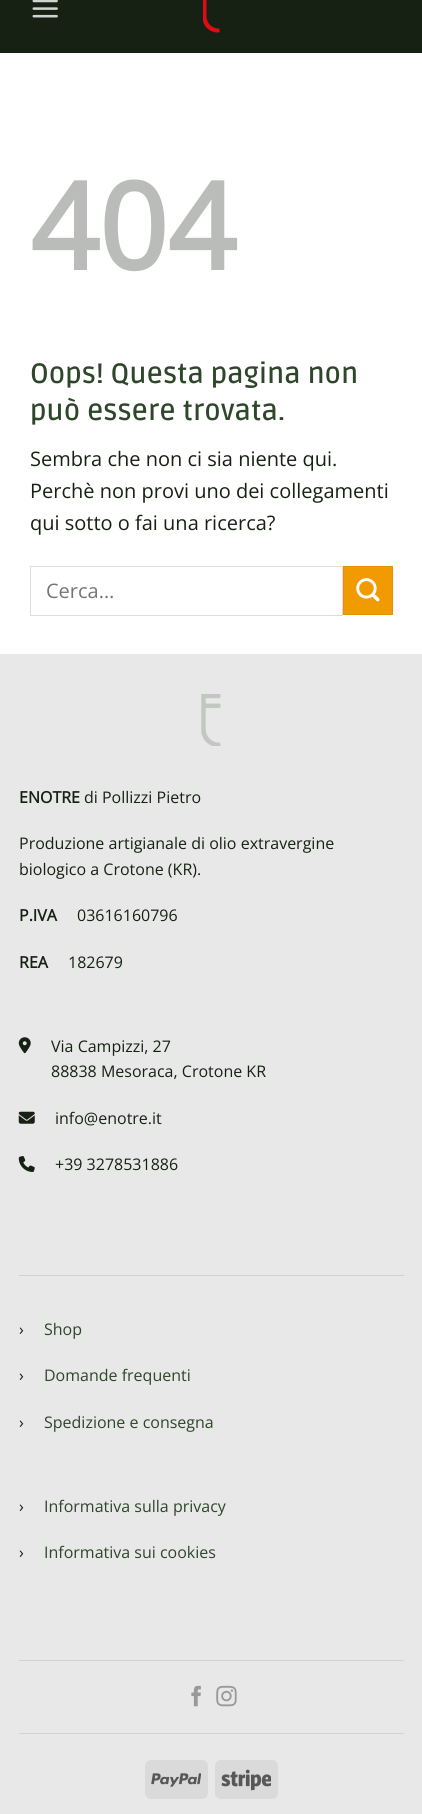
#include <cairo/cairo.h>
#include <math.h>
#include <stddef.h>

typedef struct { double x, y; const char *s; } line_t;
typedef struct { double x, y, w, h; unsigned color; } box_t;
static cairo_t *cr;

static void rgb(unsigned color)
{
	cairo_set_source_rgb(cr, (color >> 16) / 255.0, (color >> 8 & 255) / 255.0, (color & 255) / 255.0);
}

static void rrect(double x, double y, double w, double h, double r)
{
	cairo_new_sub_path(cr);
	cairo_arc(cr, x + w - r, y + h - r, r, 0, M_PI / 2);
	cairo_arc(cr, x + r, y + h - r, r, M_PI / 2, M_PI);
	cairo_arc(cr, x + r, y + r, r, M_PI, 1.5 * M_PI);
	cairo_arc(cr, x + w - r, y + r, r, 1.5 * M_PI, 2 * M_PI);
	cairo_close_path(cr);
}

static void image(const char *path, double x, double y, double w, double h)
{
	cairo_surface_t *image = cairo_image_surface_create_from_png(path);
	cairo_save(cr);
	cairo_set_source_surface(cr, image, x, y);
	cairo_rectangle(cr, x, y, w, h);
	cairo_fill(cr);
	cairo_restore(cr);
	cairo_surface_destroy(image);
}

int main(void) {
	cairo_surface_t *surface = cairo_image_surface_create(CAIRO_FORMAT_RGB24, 422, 1814);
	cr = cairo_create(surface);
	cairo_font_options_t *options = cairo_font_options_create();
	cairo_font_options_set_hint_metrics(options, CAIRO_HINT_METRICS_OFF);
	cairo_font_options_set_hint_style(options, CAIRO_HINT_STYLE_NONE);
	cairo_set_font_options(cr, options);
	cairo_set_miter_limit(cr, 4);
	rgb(0xffffff);
	cairo_paint(cr);
	rgb(0x162114);
	cairo_rectangle(cr, 0, 0, 422, 53);
	cairo_fill(cr);
	image("img/1.png", 32, 0, 26, 18);
	image("img/2.png", 203, 0, 17, 33);
	cairo_rectangle(cr, 30.5, 566.5, 312, 49);
	rgb(0xdddddd);
	cairo_set_line_width(cr, 1);
	cairo_stroke(cr);
	rgb(0xf29a01);
	cairo_rectangle(cr, 343.5, 566.5, 49, 48);
	cairo_fill_preserve(cr);
	rgb(0xe69201);
	cairo_stroke(cr);
	image("img/3.png", 356, 578, 24, 24);
	rgb(0xe7e8e7);
	cairo_rectangle(cr, 0, 654, 422, 1160);
	cairo_fill(cr);
	rgb(0xd9dad9);
	rrect(145, 1760, 63, 39, 6);
	cairo_fill(cr);
	image("img/4.png", 151, 1773, 50, 14);
	rrect(215, 1760, 63, 39, 6);
	cairo_fill(cr);
	image("img/5.png", 221, 1769, 50, 22);
	image("img/6.png", 201, 694, 20, 52);
	image("img/7.png", 18, 1037, 13, 17);
	image("img/8.png", 18, 1111, 17, 13);
	image("img/9.png", 18, 1156, 17, 16);
	{
		static const box_t items[] = {
			{19, 1275, 385, 1, 0xd0d1d0},
			{19, 1660, 385, 1, 0xd2d4d2},
			{19, 1733, 385, 1, 0xd2d4d2},
		};
		for (size_t i = 0; i < sizeof items / sizeof *items; i++) {
			rgb(items[i].color);
			cairo_rectangle(cr, items[i].x, items[i].y, items[i].w, items[i].h);
			cairo_fill(cr);
		}
	}
	image("img/10.png", 191, 1685, 10, 22);
	image("img/11.png", 216, 1685, 21, 22);
	cairo_select_font_face(cr, "Open Sans", CAIRO_FONT_SLANT_NORMAL, CAIRO_FONT_WEIGHT_BOLD);
	cairo_set_font_size(cr, 120);
	rgb(0xb9bcb9);
	cairo_move_to(cr, 30, 270);
	cairo_show_text(cr, "404");
	cairo_select_font_face(cr, "Ruda SemiBold", CAIRO_FONT_SLANT_NORMAL, CAIRO_FONT_WEIGHT_NORMAL);
	cairo_set_font_size(cr, 28);
	rgb(0x2e462a);
	cairo_move_to(cr, 30, 383);
	cairo_show_text(cr, "Oops! Questa pagina non");
	cairo_move_to(cr, 30, 420);
	cairo_show_text(cr, "può essere trovata.");
	cairo_select_font_face(cr, "Open Sans", CAIRO_FONT_SLANT_NORMAL, CAIRO_FONT_WEIGHT_NORMAL);
	cairo_set_font_size(cr, 20);
	rgb(0x162114);
	{
		static const line_t items[] = {
			{30, 466, "Sembra che non ci sia niente qui."},
			{30, 498, "Perchè non provi uno dei collegamenti"},
			{30, 530, "qui sotto o fai una ricerca?"},
		};
		for (size_t i = 0; i < sizeof items / sizeof *items; i++) {
			cairo_move_to(cr, items[i].x, items[i].y);
			cairo_show_text(cr, items[i].s);
		}
	}
	rgb(0x757575);
	cairo_move_to(cr, 46, 598);
	cairo_show_text(cr, "Cerca…");
	cairo_select_font_face(cr, "Open Sans", CAIRO_FONT_SLANT_NORMAL, CAIRO_FONT_WEIGHT_BOLD);
	cairo_set_font_size(cr, 16);
	rgb(0x162114);
	cairo_move_to(cr, 19, 803);
	cairo_show_text(cr, "ENOTRE");
	cairo_select_font_face(cr, "Open Sans", CAIRO_FONT_SLANT_NORMAL, CAIRO_FONT_WEIGHT_NORMAL);
	{
		static const line_t items[] = {
			{84, 803, "di Pollizzi Pietro"},
			{19, 849, "Produzione artigianale di olio extravergine"},
			{19, 875, "biologico a Crotone (KR)."},
		};
		for (size_t i = 0; i < sizeof items / sizeof *items; i++) {
			cairo_move_to(cr, items[i].x, items[i].y);
			cairo_show_text(cr, items[i].s);
		}
	}
	cairo_select_font_face(cr, "Open Sans", CAIRO_FONT_SLANT_NORMAL, CAIRO_FONT_WEIGHT_BOLD);
	cairo_move_to(cr, 19, 921);
	cairo_show_text(cr, "P.IVA");
	cairo_select_font_face(cr, "Open Sans", CAIRO_FONT_SLANT_NORMAL, CAIRO_FONT_WEIGHT_NORMAL);
	cairo_move_to(cr, 77, 921);
	cairo_show_text(cr, "03616160796");
	cairo_select_font_face(cr, "Open Sans", CAIRO_FONT_SLANT_NORMAL, CAIRO_FONT_WEIGHT_BOLD);
	cairo_move_to(cr, 19, 968);
	cairo_show_text(cr, "REA");
	cairo_select_font_face(cr, "Open Sans", CAIRO_FONT_SLANT_NORMAL, CAIRO_FONT_WEIGHT_NORMAL);
	{
		static const line_t items[] = {
			{68, 968, "182679"},
			{51, 1052, "Via Campizzi, 27"},
			{51, 1077, "88838 Mesoraca, Crotone KR"},
			{55, 1124, "info@enotre.it"},
			{55, 1170, "+39 3278531886"},
			{19, 1335, "›"},
		};
		for (size_t i = 0; i < sizeof items / sizeof *items; i++) {
			cairo_move_to(cr, items[i].x, items[i].y);
			cairo_show_text(cr, items[i].s);
		}
	}
	rgb(0x2e462a);
	cairo_move_to(cr, 44, 1335);
	cairo_show_text(cr, "Shop");
	rgb(0x162114);
	cairo_move_to(cr, 19, 1381);
	cairo_show_text(cr, "›");
	rgb(0x2e462a);
	cairo_move_to(cr, 44, 1381);
	cairo_show_text(cr, "Domande frequenti");
	rgb(0x162114);
	cairo_move_to(cr, 19, 1428);
	cairo_show_text(cr, "›");
	rgb(0x2e462a);
	cairo_move_to(cr, 44, 1428);
	cairo_show_text(cr, "Spedizione e consegna");
	rgb(0x162114);
	cairo_move_to(cr, 19, 1512);
	cairo_show_text(cr, "›");
	rgb(0x2e462a);
	cairo_move_to(cr, 44, 1512);
	cairo_show_text(cr, "Informativa sulla privacy");
	rgb(0x162114);
	cairo_move_to(cr, 19, 1558);
	cairo_show_text(cr, "›");
	rgb(0x2e462a);
	cairo_move_to(cr, 44, 1558);
	cairo_show_text(cr, "Informativa sui cookies");
	cairo_surface_write_to_png(surface, "page.png");
	cairo_font_options_destroy(options);
	cairo_destroy(cr);
	cairo_surface_destroy(surface);
	return 0;
}
